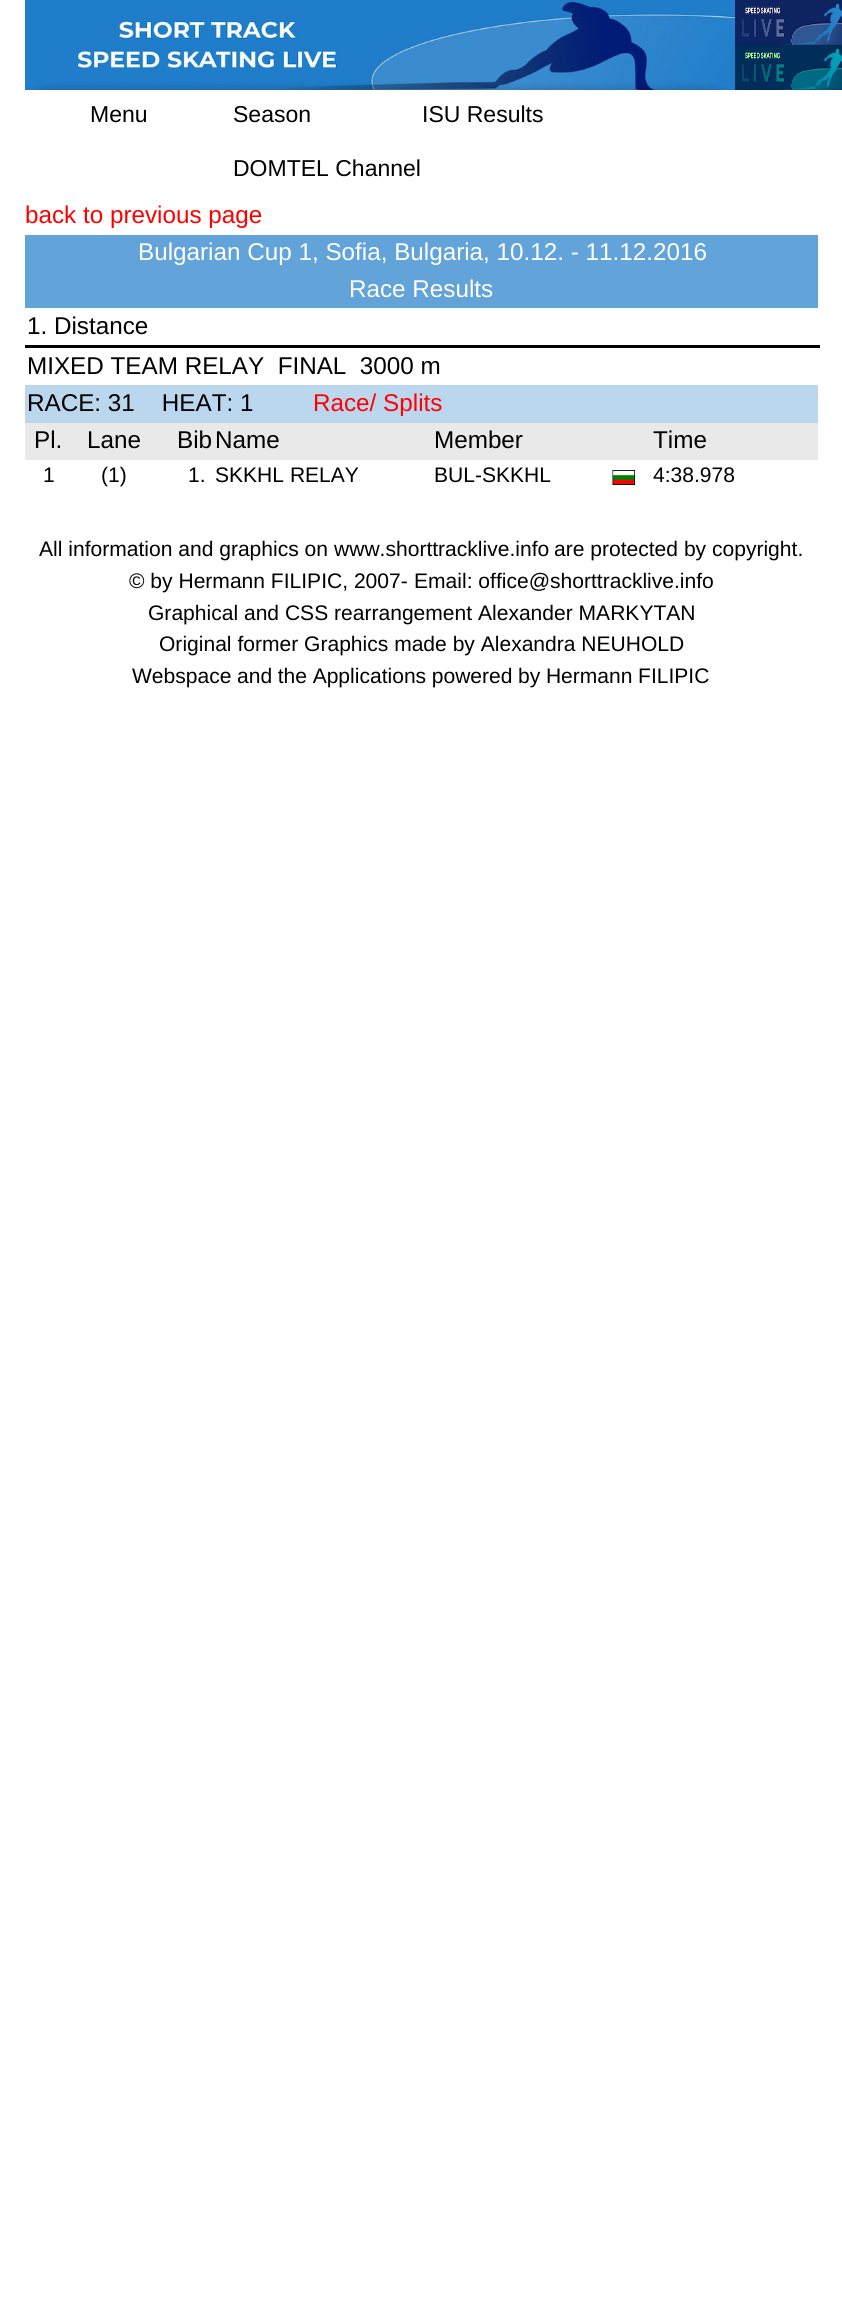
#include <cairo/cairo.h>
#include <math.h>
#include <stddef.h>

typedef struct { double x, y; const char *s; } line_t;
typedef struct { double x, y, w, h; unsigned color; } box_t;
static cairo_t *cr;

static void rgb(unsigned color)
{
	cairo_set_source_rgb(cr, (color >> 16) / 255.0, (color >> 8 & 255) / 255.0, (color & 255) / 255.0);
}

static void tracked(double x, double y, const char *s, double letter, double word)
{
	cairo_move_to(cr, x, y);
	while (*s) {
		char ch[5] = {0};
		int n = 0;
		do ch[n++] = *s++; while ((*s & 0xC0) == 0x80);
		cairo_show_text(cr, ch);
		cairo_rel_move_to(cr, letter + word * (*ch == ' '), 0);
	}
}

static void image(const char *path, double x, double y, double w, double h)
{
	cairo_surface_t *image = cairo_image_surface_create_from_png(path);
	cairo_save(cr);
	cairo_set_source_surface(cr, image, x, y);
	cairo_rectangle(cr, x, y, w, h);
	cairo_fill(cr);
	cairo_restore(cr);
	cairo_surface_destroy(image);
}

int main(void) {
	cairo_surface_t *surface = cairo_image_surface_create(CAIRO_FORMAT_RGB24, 842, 2320);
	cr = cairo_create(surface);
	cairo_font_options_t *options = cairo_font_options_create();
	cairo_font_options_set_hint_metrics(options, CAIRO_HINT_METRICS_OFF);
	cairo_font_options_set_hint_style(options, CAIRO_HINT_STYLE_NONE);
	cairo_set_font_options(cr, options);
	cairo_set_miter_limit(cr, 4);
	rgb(0xffffff);
	cairo_paint(cr);
	image("img/1.png", 25, 0, 710, 90);
	image("img/2.png", 735, 0, 107, 45);
	image("img/3.png", 735, 45, 107, 45);
	{
		static const box_t items[] = {
			{25, 235, 793, 73, 0x62a3d9},
			{25, 345, 795, 3, 0x000000},
			{25, 385, 793, 38, 0xbbd7ee},
			{25, 423, 793, 37, 0xe9e9e9},
		};
		for (size_t i = 0; i < sizeof items / sizeof *items; i++) {
			rgb(items[i].color);
			cairo_rectangle(cr, items[i].x, items[i].y, items[i].w, items[i].h);
			cairo_fill(cr);
		}
	}
	image("img/4.png", 612, 470, 23, 15);
	cairo_select_font_face(cr, "Liberation Sans", CAIRO_FONT_SLANT_NORMAL, CAIRO_FONT_WEIGHT_NORMAL);
	cairo_set_font_size(cr, 23);
	rgb(0x000000);
	{
		static const line_t items[] = {
			{90, 122, "Menu"},
			{233, 122, "Season"},
			{422, 122, "ISU Results"},
			{233, 176, "DOMTEL Channel"},
		};
		for (size_t i = 0; i < sizeof items / sizeof *items; i++) {
			cairo_move_to(cr, items[i].x, items[i].y);
			cairo_show_text(cr, items[i].s);
		}
	}
	cairo_set_font_size(cr, 24.25);
	rgb(0xff0000);
	cairo_move_to(cr, 25, 223);
	cairo_show_text(cr, "back to previous page");
	rgb(0xffffff);
	cairo_move_to(cr, 138, 260);
	cairo_show_text(cr, "Bulgarian Cup 1, Sofia, Bulgaria, 10.12. - 11.12.2016");
	cairo_move_to(cr, 349, 297);
	cairo_show_text(cr, "Race Results");
	rgb(0x000000);
	{
		static const line_t items[] = {
			{27, 334, "1. Distance"},
			{27, 374, "MIXED TEAM RELAY  FINAL  3000 m"},
			{27, 411, "RACE: 31    HEAT: 1"},
		};
		for (size_t i = 0; i < sizeof items / sizeof *items; i++) {
			cairo_move_to(cr, items[i].x, items[i].y);
			cairo_show_text(cr, items[i].s);
		}
	}
	rgb(0xff0000);
	cairo_move_to(cr, 313, 411);
	cairo_show_text(cr, "Race/ Splits");
	rgb(0x000000);
	{
		static const line_t items[] = {
			{34, 448, "Pl."},
			{87, 448, "Lane"},
			{177, 448, "Bib"},
			{215, 448, "Name"},
			{434, 448, "Member"},
			{653, 448, "Time"},
		};
		for (size_t i = 0; i < sizeof items / sizeof *items; i++) {
			cairo_move_to(cr, items[i].x, items[i].y);
			cairo_show_text(cr, items[i].s);
		}
	}
	cairo_set_font_size(cr, 21.05);
	{
		static const line_t items[] = {
			{43, 482, "1"},
			{101, 482, "(1)"},
			{188, 482, "1."},
			{215, 482, "SKKHL RELAY"},
			{434, 482, "BUL-SKKHL"},
			{653, 482, "4:38.978"},
			{39, 556, "All information and graphics on"},
			{334, 556, "www.shorttracklive.info"},
			{554, 556, "are protected by copyright."},
			{129, 588, "© by Hermann FILIPIC, 2007-"},
			{414, 588, "Email: office@shorttracklive.info"},
			{148, 620, "Graphical and CSS rearrangement Alexander MARKYTAN"},
			{159, 651, "Original former Graphics made by Alexandra NEUHOLD"},
		};
		for (size_t i = 0; i < sizeof items / sizeof *items; i++) {
			cairo_move_to(cr, items[i].x, items[i].y);
			cairo_show_text(cr, items[i].s);
		}
	}
	tracked(132, 683, "Webspace and the Applications powered by Hermann FILIPIC", 0, -0.25);
	cairo_surface_write_to_png(surface, "page.png");
	cairo_font_options_destroy(options);
	cairo_destroy(cr);
	cairo_surface_destroy(surface);
	return 0;
}
